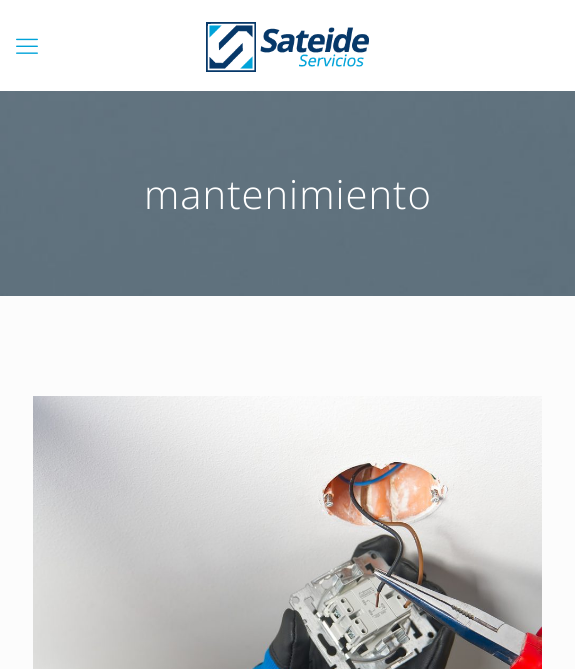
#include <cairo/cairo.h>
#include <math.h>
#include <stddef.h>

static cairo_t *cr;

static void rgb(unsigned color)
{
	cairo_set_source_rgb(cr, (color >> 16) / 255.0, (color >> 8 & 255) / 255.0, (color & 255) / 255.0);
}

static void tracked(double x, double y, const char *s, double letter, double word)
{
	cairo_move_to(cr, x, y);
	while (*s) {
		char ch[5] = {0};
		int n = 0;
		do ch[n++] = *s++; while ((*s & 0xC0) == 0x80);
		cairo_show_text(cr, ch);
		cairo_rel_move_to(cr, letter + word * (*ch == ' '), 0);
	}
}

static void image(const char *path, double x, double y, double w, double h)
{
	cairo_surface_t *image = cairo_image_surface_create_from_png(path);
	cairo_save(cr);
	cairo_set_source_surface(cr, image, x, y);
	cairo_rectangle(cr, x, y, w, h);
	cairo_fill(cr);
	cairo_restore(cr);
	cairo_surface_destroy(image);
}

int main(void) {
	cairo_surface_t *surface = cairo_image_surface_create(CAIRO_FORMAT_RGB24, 575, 669);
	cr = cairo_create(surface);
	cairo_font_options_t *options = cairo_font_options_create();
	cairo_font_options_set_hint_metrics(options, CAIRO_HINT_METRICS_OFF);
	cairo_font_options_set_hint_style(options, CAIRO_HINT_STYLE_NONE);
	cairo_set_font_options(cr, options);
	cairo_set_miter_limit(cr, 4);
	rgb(0xfcfcfc);
	cairo_paint(cr);
	rgb(0xffffff);
	cairo_rectangle(cr, 0, 0, 575, 91);
	cairo_fill(cr);
	image("img/1.png", 16, 38, 22, 16);
	image("img/2.png", 206, 22, 163, 50);
	image("img/3.png", 0, 91, 575, 205);
	image("img/4.png", 33, 396, 509, 273);
	cairo_select_font_face(cr, "Open Sans Light", CAIRO_FONT_SLANT_NORMAL, CAIRO_FONT_WEIGHT_NORMAL);
	cairo_set_font_size(cr, 40);
	tracked(144, 209, "mantenimiento", 1, 0);
	cairo_surface_write_to_png(surface, "page.png");
	cairo_font_options_destroy(options);
	cairo_destroy(cr);
	cairo_surface_destroy(surface);
	return 0;
}
